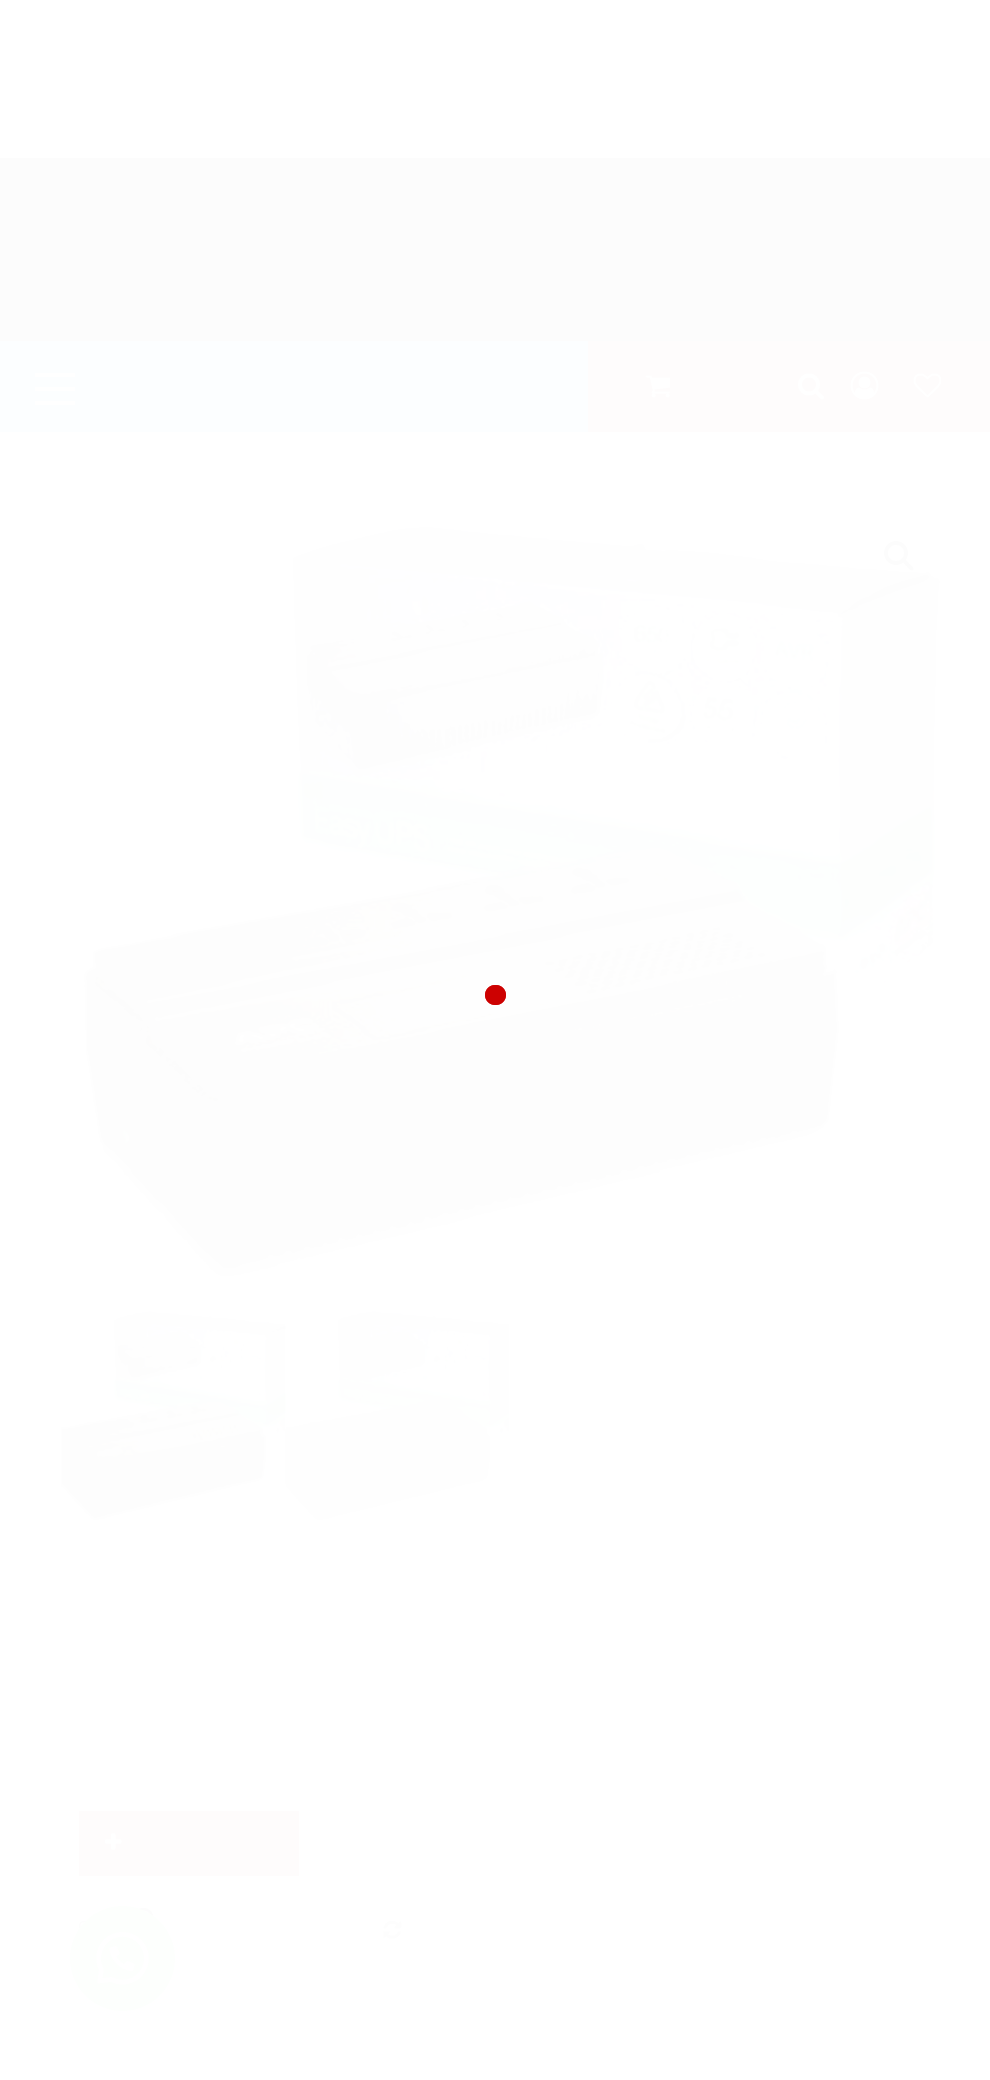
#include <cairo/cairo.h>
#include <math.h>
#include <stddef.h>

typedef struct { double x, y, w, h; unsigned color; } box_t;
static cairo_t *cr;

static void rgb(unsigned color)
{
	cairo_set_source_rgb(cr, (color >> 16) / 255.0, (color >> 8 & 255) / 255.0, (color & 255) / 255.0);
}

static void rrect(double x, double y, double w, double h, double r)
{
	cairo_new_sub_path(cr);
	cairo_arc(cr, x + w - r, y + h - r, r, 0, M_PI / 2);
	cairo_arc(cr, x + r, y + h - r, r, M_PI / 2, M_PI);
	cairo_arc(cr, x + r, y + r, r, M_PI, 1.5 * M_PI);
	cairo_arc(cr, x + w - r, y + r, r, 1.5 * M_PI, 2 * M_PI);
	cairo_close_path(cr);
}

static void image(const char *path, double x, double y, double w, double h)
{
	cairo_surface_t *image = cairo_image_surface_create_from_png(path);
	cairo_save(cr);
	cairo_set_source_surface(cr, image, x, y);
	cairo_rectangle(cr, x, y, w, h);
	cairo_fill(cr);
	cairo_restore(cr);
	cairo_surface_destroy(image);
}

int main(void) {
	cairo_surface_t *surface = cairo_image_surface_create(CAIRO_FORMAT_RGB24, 990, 2080);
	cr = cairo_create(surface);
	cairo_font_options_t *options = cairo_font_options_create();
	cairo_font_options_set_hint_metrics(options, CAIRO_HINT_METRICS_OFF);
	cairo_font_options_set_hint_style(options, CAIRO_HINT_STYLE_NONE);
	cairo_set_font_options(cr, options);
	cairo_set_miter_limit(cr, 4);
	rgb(0xffffff);
	cairo_paint(cr);
	image("img/1.png", 171, 26, 15, 22);
	image("img/2.png", 589, 26, 22, 22);
	image("img/3.png", 248, 66, 25, 20);
	image("img/4.png", 558, 64, 22, 22);
	{
		static const box_t items[] = {
			{0, 158, 990, 183, 0xfcfcfc},
			{0, 341, 588, 91, 0xfcfeff},
			{35, 387, 40, 4, 0xffffff},
			{35, 373, 40, 4, 0xffffff},
			{35, 401, 40, 4, 0xffffff},
			{588, 341, 402, 91, 0xfefcfc},
		};
		for (size_t i = 0; i < sizeof items / sizeof *items; i++) {
			rgb(items[i].color);
			cairo_rectangle(cr, items[i].x, items[i].y, items[i].w, items[i].h);
			cairo_fill(cr);
		}
	}
	image("img/5.png", 645, 375, 25, 23);
	image("img/6.png", 798, 373, 26, 27);
	image("img/7.png", 850, 371, 29, 29);
	image("img/8.png", 913, 373, 28, 25);
	image("img/9.png", 75, 517, 874, 764);
	cairo_arc(cr, 896, 553, 10, 0, 2 * M_PI);
	rgb(0xfcfcfc);
	cairo_set_line_width(cr, 4);
	cairo_stroke(cr);
	cairo_new_path(cr);
	cairo_move_to(cr, 903.5, 560);
	cairo_curve_to(cr, 905.5, 558, 908.5, 563, 909.5, 564);
	cairo_curve_to(cr, 910.5, 565, 915, 568, 913, 570);
	cairo_curve_to(cr, 911, 572, 908, 567.5, 907, 566.5);
	cairo_curve_to(cr, 906, 565.5, 901.5, 562, 903.5, 560);
	cairo_close_path(cr);
	cairo_fill(cr);
	image("img/10.png", 61, 1304, 225, 224);
	image("img/11.png", 285, 1304, 225, 223);
	rgb(0xfefcfc);
	cairo_rectangle(cr, 79, 1811, 220, 65);
	cairo_fill(cr);
	image("img/12.png", 105, 1833, 17, 17);
	image("img/13.png", 345, 1843, 9, 9);
	image("img/14.png", 78, 1920, 8, 9);
	cairo_new_path(cr);
	cairo_move_to(cr, 152, 1917.5);
	cairo_curve_to(cr, 152, 1908.5, 139, 1906, 135.5, 1914);
	cairo_curve_to(cr, 131, 1904, 112.5, 1910, 122, 1926.5);
	cairo_curve_to(cr, 125, 1931.5, 130, 1936.5, 135.5, 1939);
	cairo_curve_to(cr, 135.5, 1939, 152, 1930.5, 152, 1917.5);
	cairo_close_path(cr);
	rgb(0xfcfcfc);
	cairo_set_line_width(cr, 2.7);
	cairo_set_line_cap(cr, CAIRO_LINE_CAP_ROUND);
	cairo_set_line_join(cr, CAIRO_LINE_JOIN_ROUND);
	cairo_stroke(cr);
	image("img/15.png", 383, 1920, 19, 19);
	rgb(0xcd0303);
	rrect(485, 985, 21, 20, 10);
	cairo_fill(cr);
	cairo_set_source_rgba(cr, 0.8, 0, 0, 0.69);
	rrect(485, 985, 21, 20, 10);
	cairo_fill(cr);
	cairo_set_source_rgba(cr, 0.8, 0, 0, 0.42);
	rrect(485, 985, 21, 20, 10);
	cairo_fill(cr);
	rgb(0xfdfffd);
	cairo_arc(cr, 122.5, 1958.5, 52.5, 0, 2 * M_PI);
	cairo_fill(cr);
	image("img/16.png", 96, 1932, 53, 53);
	cairo_surface_write_to_png(surface, "page.png");
	cairo_font_options_destroy(options);
	cairo_destroy(cr);
	cairo_surface_destroy(surface);
	return 0;
}
